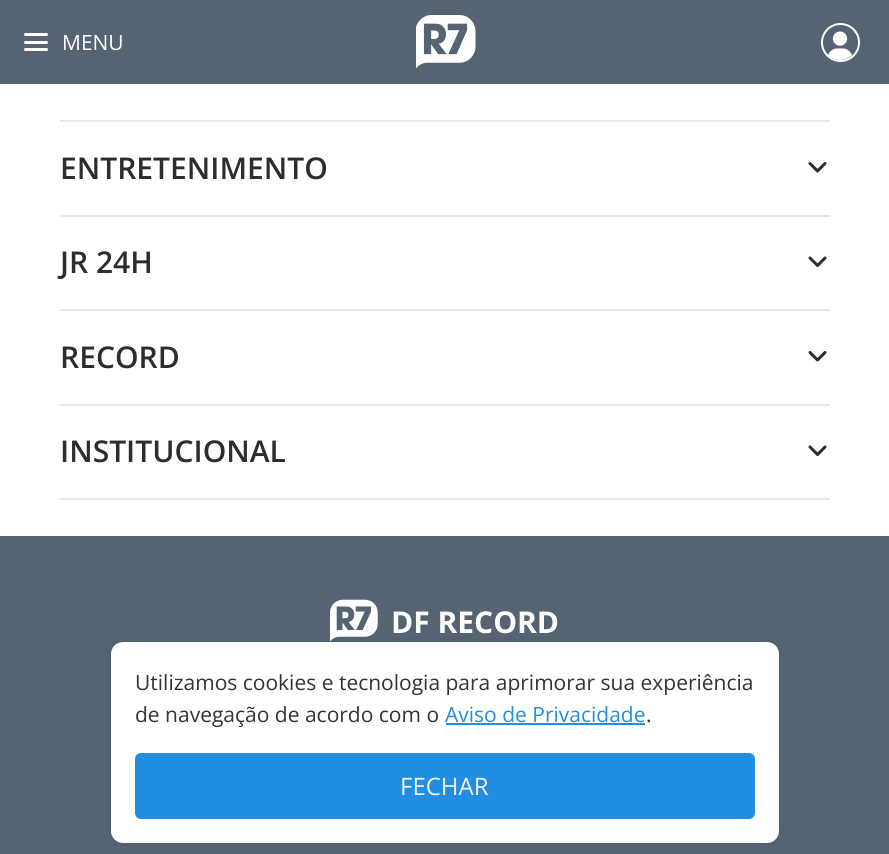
#include <cairo/cairo.h>
#include <math.h>
#include <stddef.h>

typedef struct { double x, y; const char *s; } line_t;
static cairo_t *cr;

static void rgb(unsigned color)
{
	cairo_set_source_rgb(cr, (color >> 16) / 255.0, (color >> 8 & 255) / 255.0, (color & 255) / 255.0);
}

static void rrect(double x, double y, double w, double h, double r)
{
	cairo_new_sub_path(cr);
	cairo_arc(cr, x + w - r, y + h - r, r, 0, M_PI / 2);
	cairo_arc(cr, x + r, y + h - r, r, M_PI / 2, M_PI);
	cairo_arc(cr, x + r, y + r, r, M_PI, 1.5 * M_PI);
	cairo_arc(cr, x + w - r, y + r, r, 1.5 * M_PI, 2 * M_PI);
	cairo_close_path(cr);
}

static void soft_shadow(double x, double y, double w, double h, double r, double blur, double alpha)
{
	cairo_push_group_with_content(cr, CAIRO_CONTENT_ALPHA);
	cairo_set_operator(cr, CAIRO_OPERATOR_SOURCE);
	for (int i = 15; i >= -15 && fmin(w, h) + blur * i / 3 > 0; i -= 2) {
		double e = blur * i / 6;
		cairo_set_source_rgba(cr, 0, 0, 0, alpha * erfc((i - 1) / 8.5) / 2);
		rrect(x - e, y - e, w + 2 * e, h + 2 * e, fmax(0, fmin(r + e + blur * .6, fmin(w, h) / 2 + e)));
		cairo_fill(cr);
	}
	cairo_pattern_t *soft = cairo_pop_group(cr);
	cairo_mask(cr, soft);
	cairo_pattern_destroy(soft);
}

static void image(const char *path, double x, double y, double w, double h)
{
	cairo_surface_t *image = cairo_image_surface_create_from_png(path);
	cairo_save(cr);
	cairo_set_source_surface(cr, image, x, y);
	cairo_rectangle(cr, x, y, w, h);
	cairo_fill(cr);
	cairo_restore(cr);
	cairo_surface_destroy(image);
}

int main(void) {
	cairo_surface_t *surface = cairo_image_surface_create(CAIRO_FORMAT_RGB24, 889, 854);
	cr = cairo_create(surface);
	cairo_font_options_t *options = cairo_font_options_create();
	cairo_font_options_set_hint_metrics(options, CAIRO_HINT_METRICS_OFF);
	cairo_font_options_set_hint_style(options, CAIRO_HINT_STYLE_NONE);
	cairo_set_font_options(cr, options);
	cairo_set_miter_limit(cr, 4);
	rgb(0xffffff);
	cairo_paint(cr);
	rgb(0x556373);
	cairo_rectangle(cr, 0, 0, 889, 84);
	cairo_fill(cr);
	rgb(0xffffff);
	rrect(24, 33, 24, 3, 1.5);
	cairo_fill(cr);
	rrect(24, 41, 24, 3, 1.5);
	cairo_fill(cr);
	rrect(24, 48, 24, 3, 1.5);
	cairo_fill(cr);
	image("img/1.png", 416, 15, 60, 54);
	cairo_arc(cr, 840.5, 42.5, 18.5, 0, 2 * M_PI);
	cairo_stroke(cr);
	image("img/2.png", 828, 31, 24, 29);
	rgb(0xe7e7e7);
	cairo_rectangle(cr, 60, 120, 770, 2);
	cairo_fill(cr);
	cairo_rectangle(cr, 60, 215, 770, 2);
	cairo_fill(cr);
	image("img/3.png", 808, 162, 19, 11);
	cairo_rectangle(cr, 60, 309, 770, 2);
	cairo_fill(cr);
	image("img/4.png", 808, 256, 19, 11);
	cairo_rectangle(cr, 60, 404, 770, 2);
	cairo_fill(cr);
	image("img/3.png", 808, 351, 19, 11);
	cairo_rectangle(cr, 60, 498, 770, 2);
	cairo_fill(cr);
	image("img/4.png", 808, 445, 19, 11);
	rgb(0x556373);
	cairo_rectangle(cr, 0, 536, 889, 318);
	cairo_fill(cr);
	image("img/5.png", 330, 599, 48, 43);
	rgb(0x333333);
	soft_shadow(108, 639, 674, 207, 15, 2.5, 0.08);
	rgb(0xffffff);
	rrect(111, 642, 668, 201, 12);
	cairo_fill(cr);
	rgb(0x218ee1);
	cairo_rectangle(cr, 446, 723, 199, 2);
	cairo_fill(cr);
	rrect(135, 753, 620, 66, 6);
	cairo_fill(cr);
	cairo_select_font_face(cr, "Open Sans", CAIRO_FONT_SLANT_NORMAL, CAIRO_FONT_WEIGHT_NORMAL);
	cairo_set_font_size(cr, 21);
	rgb(0xffffff);
	cairo_move_to(cr, 62, 50);
	cairo_show_text(cr, "MENU");
	cairo_select_font_face(cr, "Open Sans SemiBold", CAIRO_FONT_SLANT_NORMAL, CAIRO_FONT_WEIGHT_NORMAL);
	cairo_set_font_size(cr, 30);
	rgb(0x2d2d2f);
	{
		static const line_t items[] = {
			{60, 179, "ENTRETENIMENTO"},
			{60, 273, "JR 24H"},
			{60, 368, "RECORD"},
			{60, 462, "INSTITUCIONAL"},
		};
		for (size_t i = 0; i < sizeof items / sizeof *items; i++) {
			cairo_move_to(cr, items[i].x, items[i].y);
			cairo_show_text(cr, items[i].s);
		}
	}
	cairo_select_font_face(cr, "Open Sans", CAIRO_FONT_SLANT_NORMAL, CAIRO_FONT_WEIGHT_BOLD);
	rgb(0xffffff);
	cairo_move_to(cr, 391, 633);
	cairo_show_text(cr, "DF RECORD");
	cairo_select_font_face(cr, "Open Sans", CAIRO_FONT_SLANT_NORMAL, CAIRO_FONT_WEIGHT_NORMAL);
	cairo_set_font_size(cr, 21);
	rgb(0x333333);
	cairo_move_to(cr, 135, 690);
	cairo_show_text(cr, "Utilizamos cookies e tecnologia para aprimorar sua experiência");
	cairo_move_to(cr, 135, 722);
	cairo_show_text(cr, "de navegação de acordo com o");
	rgb(0x218ee1);
	cairo_move_to(cr, 445, 722);
	cairo_show_text(cr, "Aviso de Privacidade");
	rgb(0x333333);
	cairo_move_to(cr, 646, 722);
	cairo_show_text(cr, ".");
	cairo_set_font_size(cr, 24);
	rgb(0xf0f2f3);
	cairo_move_to(cr, 400, 795);
	cairo_show_text(cr, "FECHAR");
	cairo_surface_write_to_png(surface, "page.png");
	cairo_font_options_destroy(options);
	cairo_destroy(cr);
	cairo_surface_destroy(surface);
	return 0;
}
